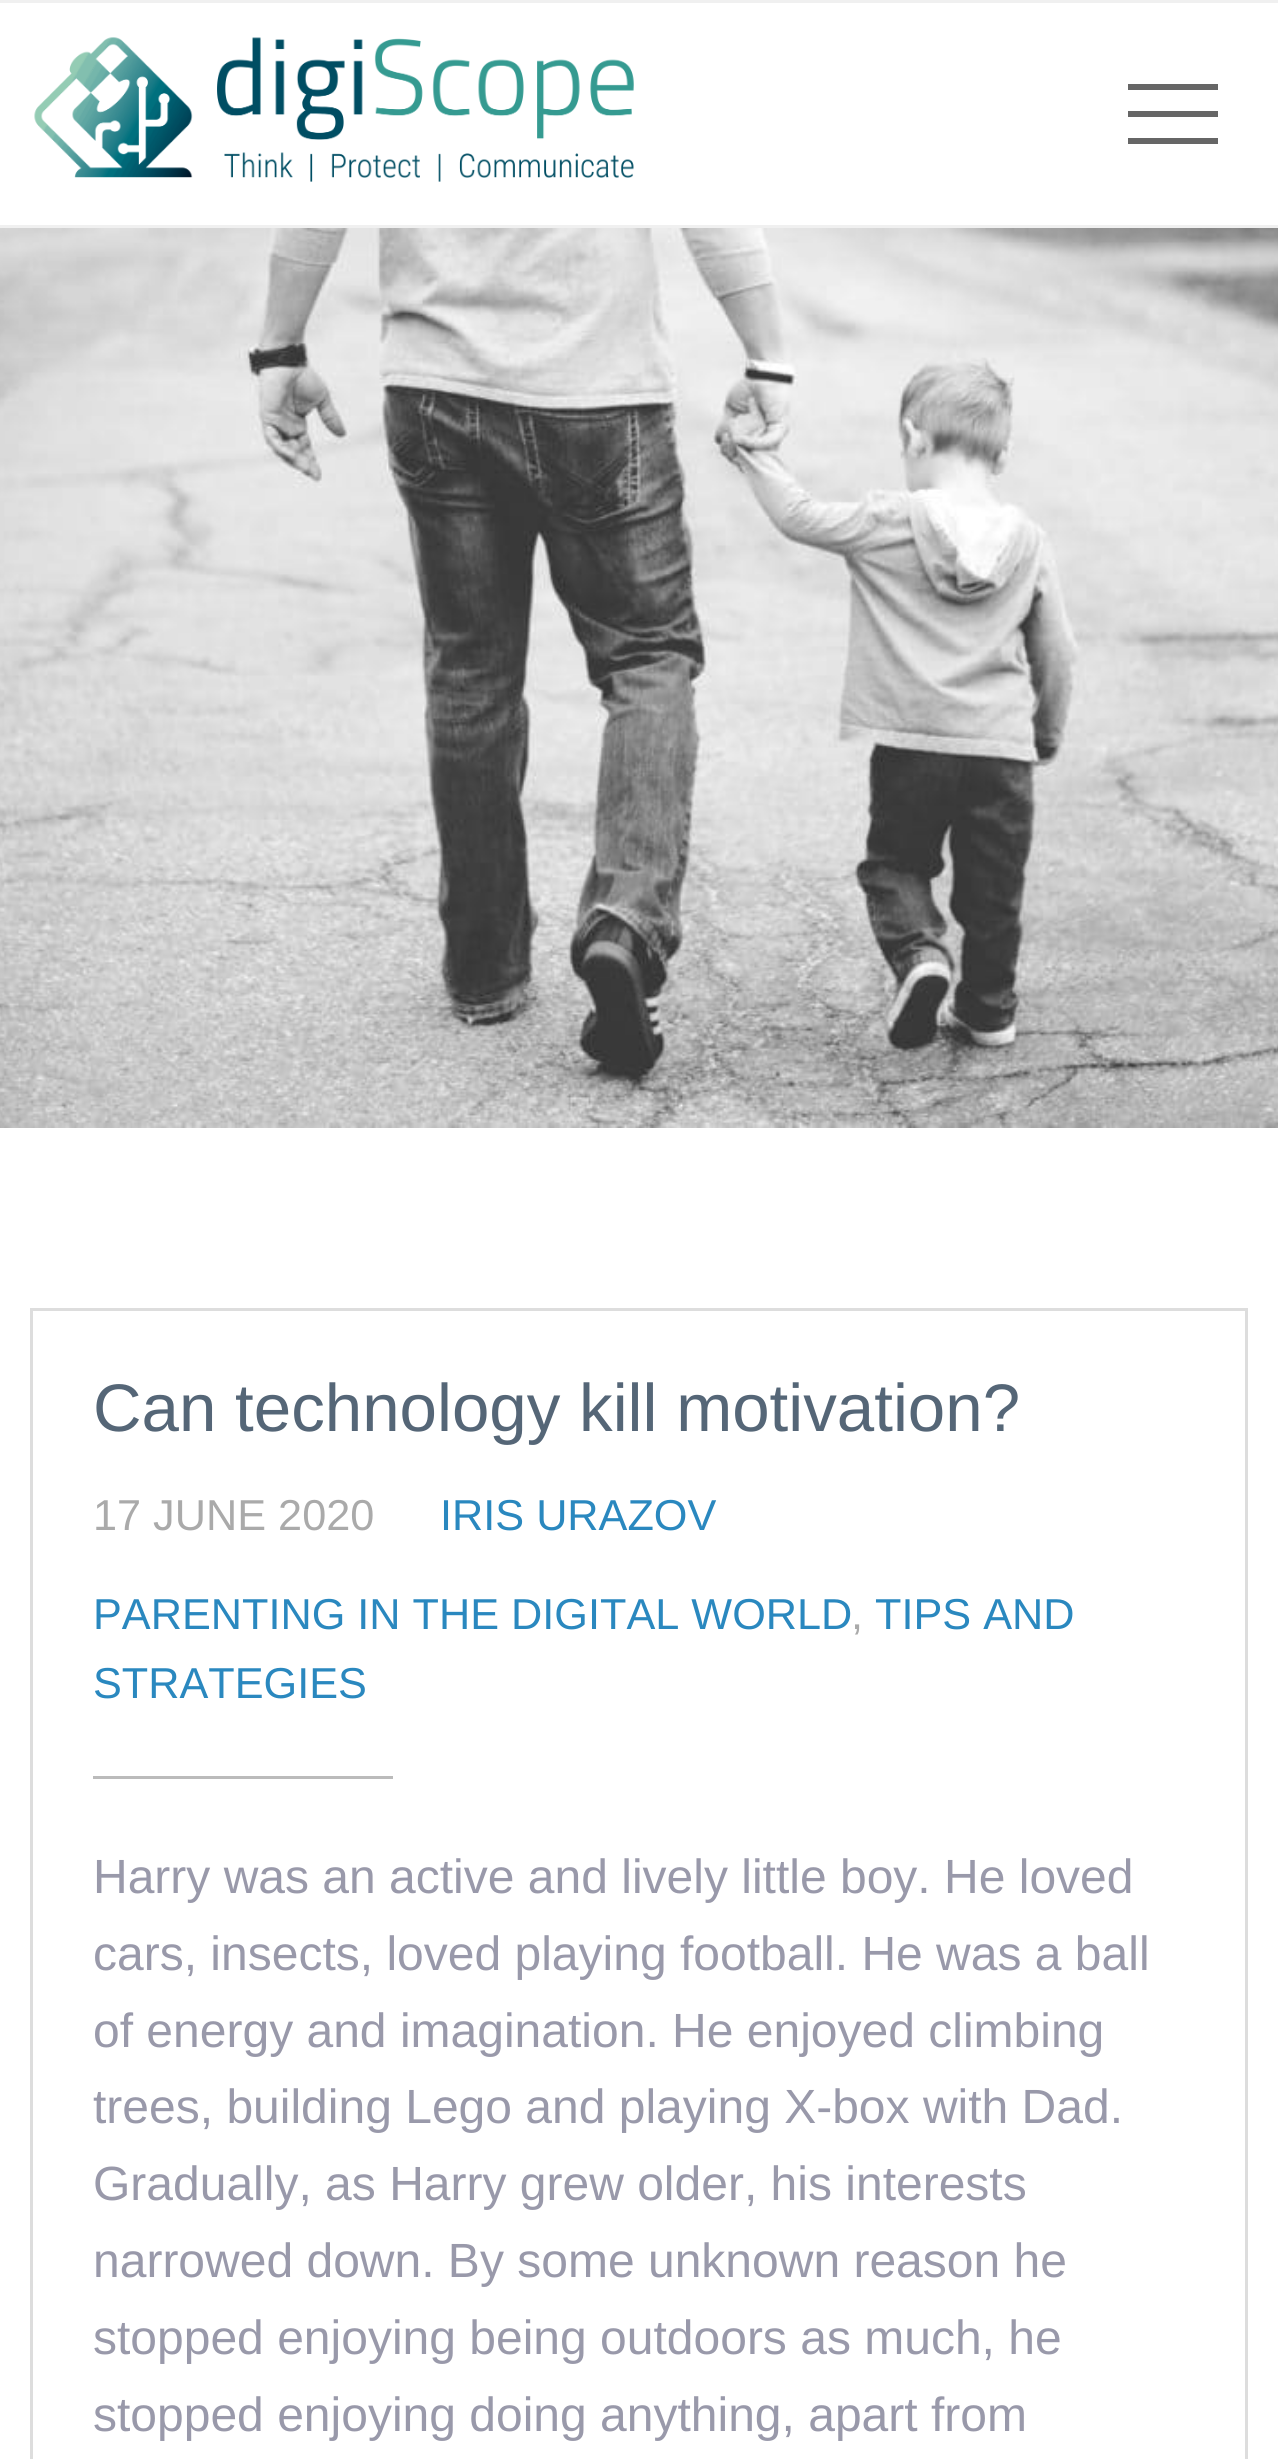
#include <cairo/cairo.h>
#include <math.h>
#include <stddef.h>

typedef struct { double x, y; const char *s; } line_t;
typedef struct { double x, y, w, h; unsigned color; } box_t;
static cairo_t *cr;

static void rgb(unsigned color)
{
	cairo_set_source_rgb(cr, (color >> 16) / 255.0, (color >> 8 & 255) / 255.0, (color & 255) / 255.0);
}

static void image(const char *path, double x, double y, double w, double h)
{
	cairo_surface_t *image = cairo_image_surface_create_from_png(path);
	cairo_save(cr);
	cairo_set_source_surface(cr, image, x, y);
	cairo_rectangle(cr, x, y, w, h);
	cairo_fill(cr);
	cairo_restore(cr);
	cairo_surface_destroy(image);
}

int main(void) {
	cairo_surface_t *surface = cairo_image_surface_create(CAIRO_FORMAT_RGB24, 1278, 2459);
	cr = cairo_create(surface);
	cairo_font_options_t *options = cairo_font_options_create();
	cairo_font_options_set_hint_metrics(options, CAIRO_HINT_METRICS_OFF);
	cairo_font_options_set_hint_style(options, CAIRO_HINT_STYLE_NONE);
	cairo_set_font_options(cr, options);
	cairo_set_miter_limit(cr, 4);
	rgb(0xffffff);
	cairo_paint(cr);
	rgb(0xf0f0f0);
	cairo_rectangle(cr, 0, 0, 1278, 3);
	cairo_fill(cr);
	cairo_rectangle(cr, 0, 225, 1278, 3);
	cairo_fill(cr);
	image("img/1.png", 34, 37, 600, 145);
	{
		static const box_t items[] = {
			{1128, 84, 90, 6, 0x666666},
			{1128, 138, 90, 6, 0x666666},
			{1128, 111, 90, 6, 0x666666},
		};
		for (size_t i = 0; i < sizeof items / sizeof *items; i++) {
			rgb(items[i].color);
			cairo_rectangle(cr, items[i].x, items[i].y, items[i].w, items[i].h);
			cairo_fill(cr);
		}
	}
	image("img/2.png", 0, 228, 1278, 900);
	cairo_rectangle(cr, 31.5, 1309.5, 1215, 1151);
	rgb(0xdddddd);
	cairo_set_line_width(cr, 3);
	cairo_stroke(cr);
	rgb(0xbbbbbb);
	cairo_rectangle(cr, 93, 1776, 300, 3);
	cairo_fill(cr);
	cairo_select_font_face(cr, "Liberation Sans", CAIRO_FONT_SLANT_NORMAL, CAIRO_FONT_WEIGHT_NORMAL);
	cairo_set_font_size(cr, 67.25);
	rgb(0x556677);
	cairo_move_to(cr, 93, 1431);
	cairo_show_text(cr, "Can technology kill motivation?");
	cairo_set_font_size(cr, 43.25);
	rgb(0xaaaaaa);
	cairo_move_to(cr, 93, 1530);
	cairo_show_text(cr, "17 JUNE 2020");
	rgb(0x2a88bf);
	cairo_move_to(cr, 440, 1530);
	cairo_show_text(cr, "IRIS URAZOV");
	cairo_move_to(cr, 93, 1629);
	cairo_show_text(cr, "PARENTING IN THE DIGITAL WORLD");
	rgb(0xaaaaaa);
	cairo_move_to(cr, 851, 1629);
	cairo_show_text(cr, ",");
	rgb(0x2a88bf);
	cairo_move_to(cr, 875, 1629);
	cairo_show_text(cr, "TIPS AND");
	cairo_move_to(cr, 93, 1698);
	cairo_show_text(cr, "STRATEGIES");
	cairo_set_font_size(cr, 48);
	rgb(0x9999aa);
	{
		static const line_t items[] = {
			{93, 1893, "Harry was an active and lively little boy. He loved"},
			{93, 1970, "cars, insects, loved playing football. He was a ball"},
			{93, 2047, "of energy and imagination. He enjoyed climbing"},
			{93, 2123, "trees, building Lego and playing X-box with Dad."},
			{93, 2200, "Gradually, as Harry grew older, his interests"},
			{93, 2277, "narrowed down. By some unknown reason he"},
			{93, 2354, "stopped enjoying being outdoors as much, he"},
			{93, 2431, "stopped enjoying doing anything, apart from"},
		};
		for (size_t i = 0; i < sizeof items / sizeof *items; i++) {
			cairo_move_to(cr, items[i].x, items[i].y);
			cairo_show_text(cr, items[i].s);
		}
	}
	cairo_surface_write_to_png(surface, "page.png");
	cairo_font_options_destroy(options);
	cairo_destroy(cr);
	cairo_surface_destroy(surface);
	return 0;
}
